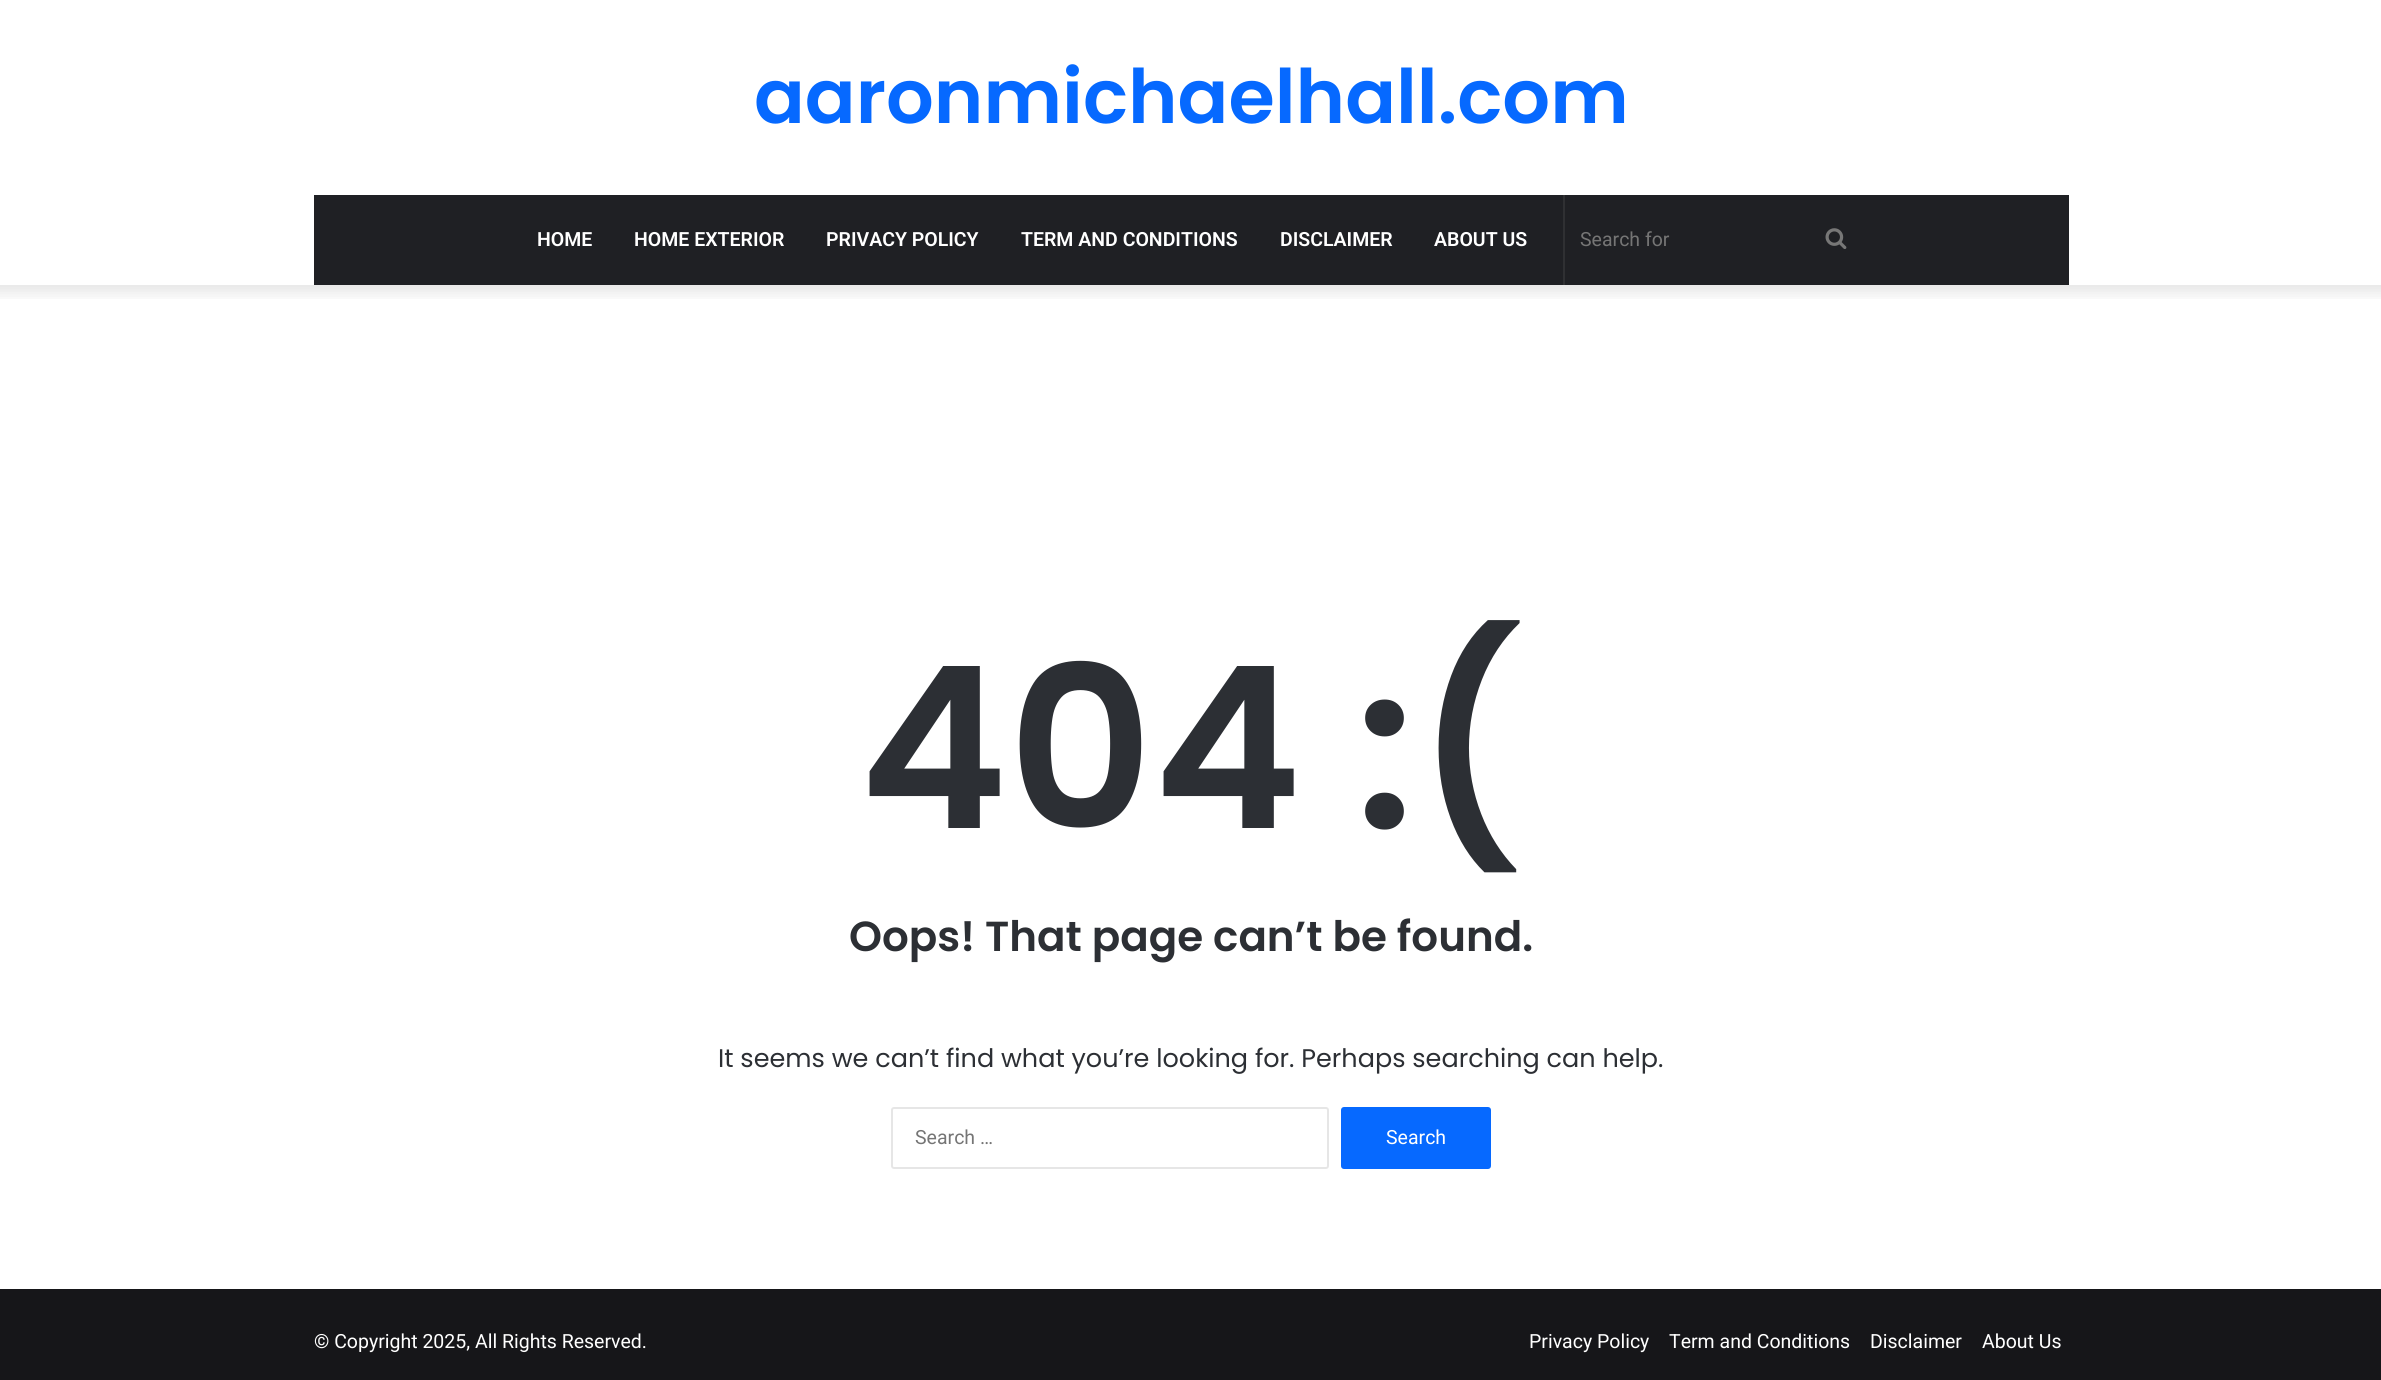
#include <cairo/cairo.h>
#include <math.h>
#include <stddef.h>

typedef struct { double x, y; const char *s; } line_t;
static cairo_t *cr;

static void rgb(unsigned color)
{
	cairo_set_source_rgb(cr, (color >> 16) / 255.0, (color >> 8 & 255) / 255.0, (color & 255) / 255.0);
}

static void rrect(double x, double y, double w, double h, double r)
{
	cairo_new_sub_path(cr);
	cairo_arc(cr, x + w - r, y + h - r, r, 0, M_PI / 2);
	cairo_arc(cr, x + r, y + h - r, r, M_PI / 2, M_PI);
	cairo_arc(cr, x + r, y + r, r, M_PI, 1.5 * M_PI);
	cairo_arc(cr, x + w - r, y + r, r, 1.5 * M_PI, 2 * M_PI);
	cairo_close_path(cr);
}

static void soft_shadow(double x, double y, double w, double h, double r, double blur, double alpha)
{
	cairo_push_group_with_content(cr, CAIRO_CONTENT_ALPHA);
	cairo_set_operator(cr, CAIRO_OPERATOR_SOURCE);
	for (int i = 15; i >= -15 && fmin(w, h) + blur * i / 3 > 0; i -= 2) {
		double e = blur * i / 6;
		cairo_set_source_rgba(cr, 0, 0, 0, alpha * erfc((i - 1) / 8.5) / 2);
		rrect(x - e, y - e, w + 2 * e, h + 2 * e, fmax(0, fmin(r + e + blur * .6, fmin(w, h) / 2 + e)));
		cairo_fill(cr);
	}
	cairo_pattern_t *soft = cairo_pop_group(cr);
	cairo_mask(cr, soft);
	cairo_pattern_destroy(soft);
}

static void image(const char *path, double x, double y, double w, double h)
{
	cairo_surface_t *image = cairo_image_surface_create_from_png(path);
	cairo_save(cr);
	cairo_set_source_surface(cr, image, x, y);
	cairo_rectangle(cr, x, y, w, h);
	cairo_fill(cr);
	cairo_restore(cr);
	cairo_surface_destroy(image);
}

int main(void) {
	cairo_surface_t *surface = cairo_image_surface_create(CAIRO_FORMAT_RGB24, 2381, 1380);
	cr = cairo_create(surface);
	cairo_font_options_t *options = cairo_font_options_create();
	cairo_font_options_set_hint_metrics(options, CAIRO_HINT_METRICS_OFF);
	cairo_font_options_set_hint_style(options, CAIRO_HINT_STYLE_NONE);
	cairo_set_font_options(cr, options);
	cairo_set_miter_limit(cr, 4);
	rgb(0xffffff);
	cairo_paint(cr);
	cairo_save(cr);
	cairo_rectangle(cr, 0, 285, 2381, 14);
	cairo_clip(cr);
	rgb(0x000000);
	soft_shadow(-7, -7, 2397, 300, 0, 7.5, 0.1);
	cairo_restore(cr);
	rgb(0x1f2024);
	cairo_rectangle(cr, 314, 195, 1755, 90);
	cairo_fill(cr);
	rgb(0x2f3033);
	cairo_rectangle(cr, 1563, 195, 2, 90);
	cairo_fill(cr);
	image("img/1.png", 1825, 228, 22, 21);
	rrect(892, 1108, 436, 60, 2);
	rgb(0xe6e6e6);
	cairo_stroke(cr);
	rgb(0x0669ff);
	rrect(1341, 1107, 150, 62, 3);
	cairo_fill(cr);
	rgb(0x161619);
	cairo_rectangle(cr, 0, 1289, 2381, 91);
	cairo_fill(cr);
	cairo_select_font_face(cr, "Poppins SemiBold", CAIRO_FONT_SLANT_NORMAL, CAIRO_FONT_WEIGHT_NORMAL);
	cairo_set_font_size(cr, 75);
	rgb(0x0669ff);
	cairo_move_to(cr, 754, 123);
	cairo_show_text(cr, "aaronmichaelhall.com");
	cairo_select_font_face(cr, "Roboto SemiBold", CAIRO_FONT_SLANT_NORMAL, CAIRO_FONT_WEIGHT_NORMAL);
	cairo_set_font_size(cr, 19.5);
	rgb(0xffffff);
	{
		static const line_t items[] = {
			{537, 246, "HOME"},
			{634, 246, "HOME EXTERIOR"},
			{826, 246, "PRIVACY POLICY"},
			{1021, 246, "TERM AND CONDITIONS"},
			{1280, 246, "DISCLAIMER"},
			{1434, 246, "ABOUT US"},
		};
		for (size_t i = 0; i < sizeof items / sizeof *items; i++) {
			cairo_move_to(cr, items[i].x, items[i].y);
			cairo_show_text(cr, items[i].s);
		}
	}
	cairo_select_font_face(cr, "Roboto", CAIRO_FONT_SLANT_NORMAL, CAIRO_FONT_WEIGHT_NORMAL);
	rgb(0x757575);
	cairo_move_to(cr, 1580, 246);
	cairo_show_text(cr, "Search for");
	cairo_select_font_face(cr, "Poppins SemiBold", CAIRO_FONT_SLANT_NORMAL, CAIRO_FONT_WEIGHT_NORMAL);
	cairo_set_font_size(cr, 225);
	rgb(0x2c2f34);
	cairo_move_to(cr, 859, 828);
	cairo_show_text(cr, "404 :(");
	cairo_set_font_size(cr, 42);
	cairo_move_to(cr, 849, 951);
	cairo_show_text(cr, "Oops! That page can’t be found.");
	cairo_select_font_face(cr, "Poppins", CAIRO_FONT_SLANT_NORMAL, CAIRO_FONT_WEIGHT_NORMAL);
	cairo_set_font_size(cr, 25.5);
	cairo_move_to(cr, 718, 1067);
	cairo_show_text(cr, "It seems we can’t find what you’re looking for. Perhaps searching can help.");
	cairo_select_font_face(cr, "Roboto", CAIRO_FONT_SLANT_NORMAL, CAIRO_FONT_WEIGHT_NORMAL);
	cairo_set_font_size(cr, 19.5);
	rgb(0x757575);
	cairo_move_to(cr, 915, 1144);
	cairo_show_text(cr, "Search …");
	rgb(0xffffff);
	{
		static const line_t items[] = {
			{1386, 1144, "Search"},
			{314, 1348, "© Copyright 2025, All Rights Reserved."},
			{1529, 1348, "Privacy Policy"},
			{1669, 1348, "Term and Conditions"},
			{1870, 1348, "Disclaimer"},
			{1982, 1348, "About Us"},
		};
		for (size_t i = 0; i < sizeof items / sizeof *items; i++) {
			cairo_move_to(cr, items[i].x, items[i].y);
			cairo_show_text(cr, items[i].s);
		}
	}
	cairo_surface_write_to_png(surface, "page.png");
	cairo_font_options_destroy(options);
	cairo_destroy(cr);
	cairo_surface_destroy(surface);
	return 0;
}
